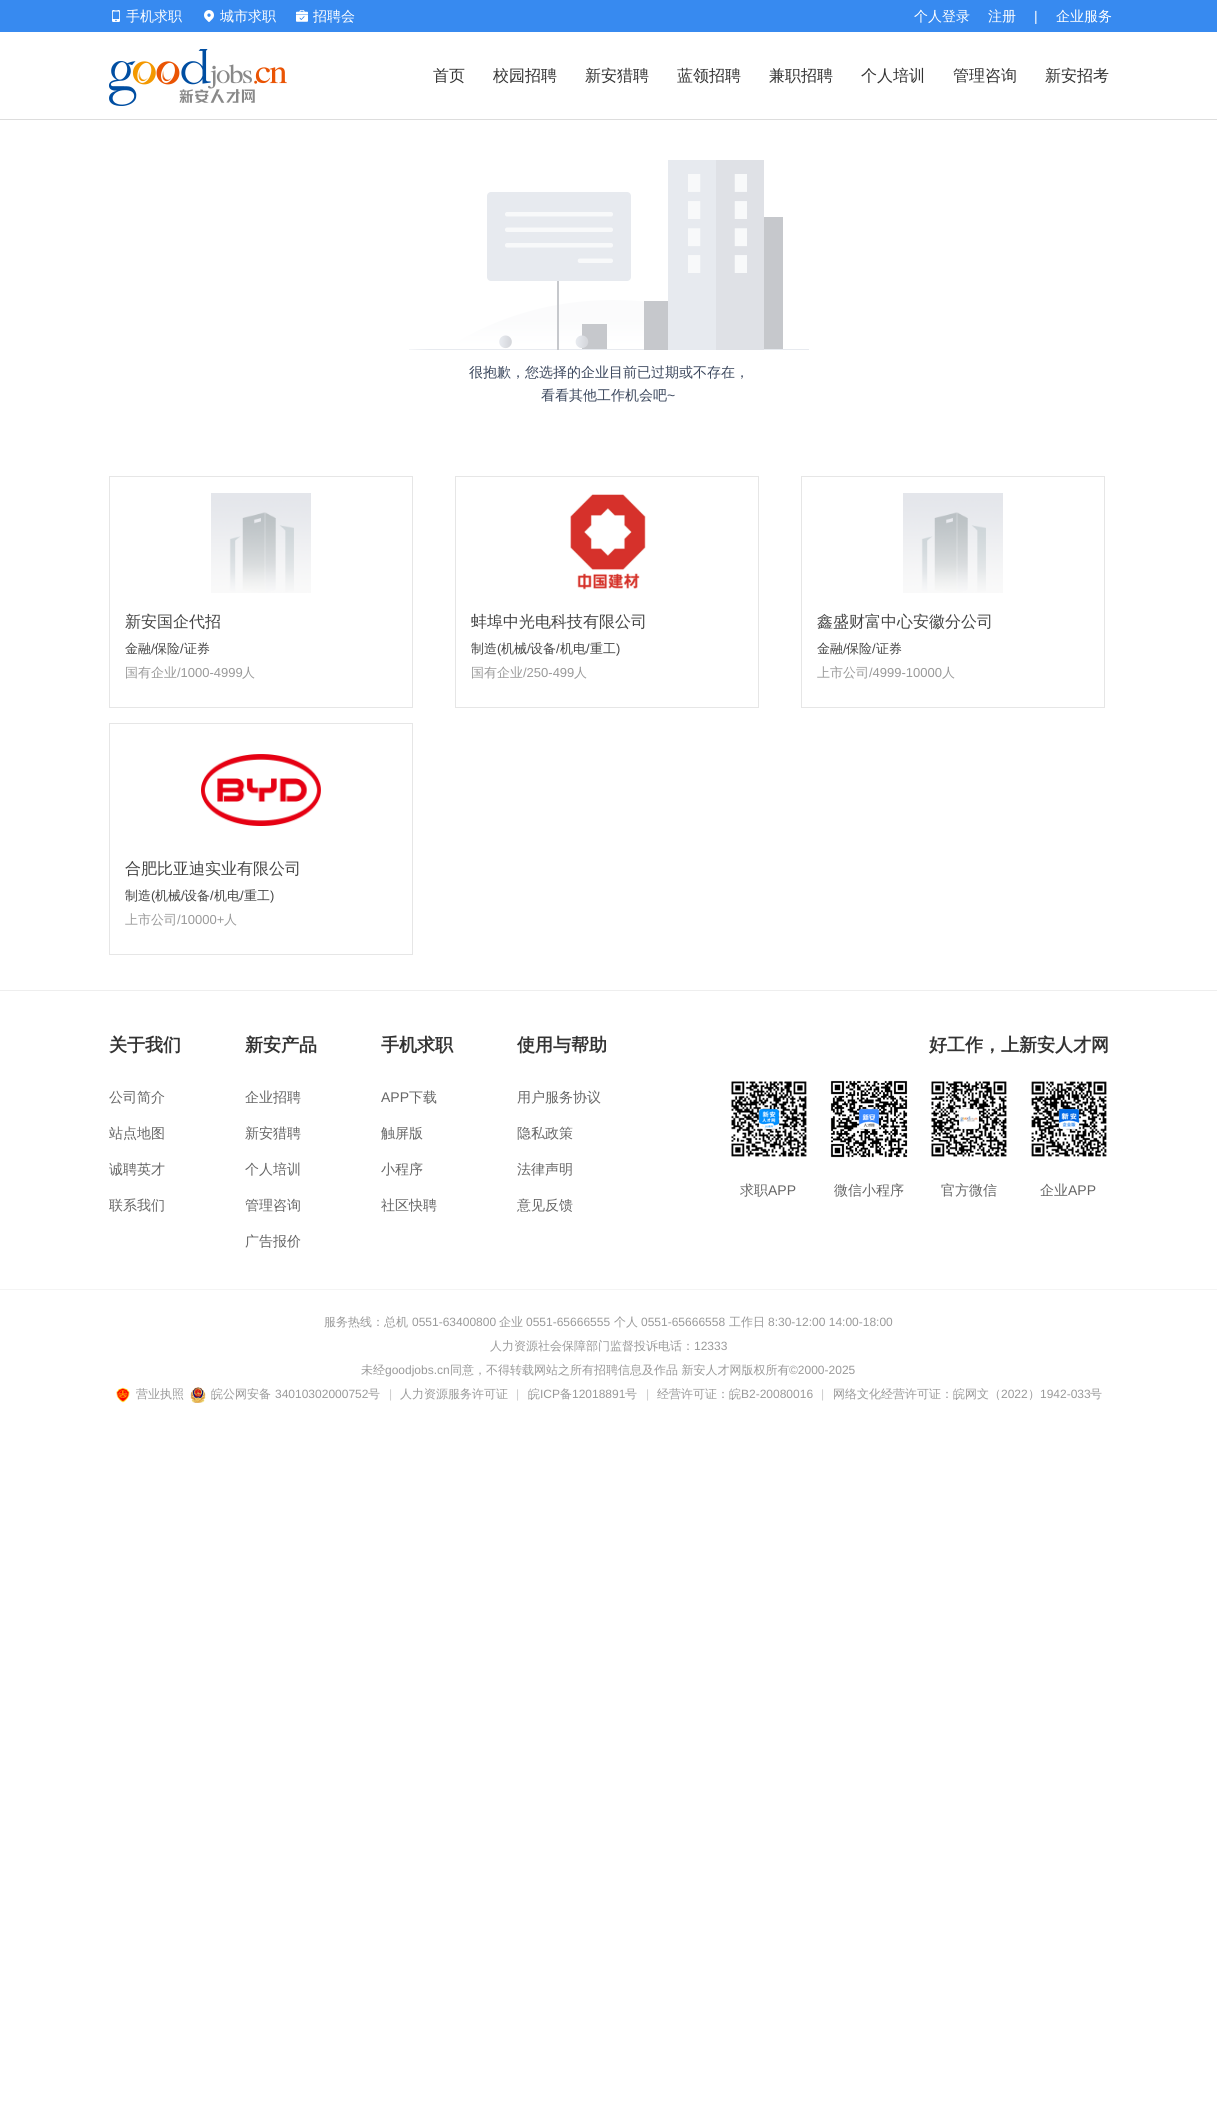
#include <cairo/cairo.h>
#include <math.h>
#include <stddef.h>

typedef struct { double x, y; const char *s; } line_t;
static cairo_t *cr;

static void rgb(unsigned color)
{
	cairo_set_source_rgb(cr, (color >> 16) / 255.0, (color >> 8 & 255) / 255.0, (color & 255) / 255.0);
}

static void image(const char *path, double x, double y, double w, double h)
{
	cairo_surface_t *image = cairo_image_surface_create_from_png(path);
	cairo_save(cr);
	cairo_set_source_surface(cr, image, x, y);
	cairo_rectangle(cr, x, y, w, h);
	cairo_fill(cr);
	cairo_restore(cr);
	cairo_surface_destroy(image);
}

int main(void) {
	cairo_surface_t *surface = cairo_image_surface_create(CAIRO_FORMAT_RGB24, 1217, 2106);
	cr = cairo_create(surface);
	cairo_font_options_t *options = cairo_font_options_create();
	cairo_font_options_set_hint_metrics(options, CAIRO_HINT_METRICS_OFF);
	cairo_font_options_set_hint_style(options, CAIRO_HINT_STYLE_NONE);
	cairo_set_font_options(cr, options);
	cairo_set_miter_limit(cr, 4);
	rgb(0xffffff);
	cairo_paint(cr);
	rgb(0x378af0);
	cairo_rectangle(cr, 0, 0, 1217, 32);
	cairo_fill(cr);
	image("img/1.png", 112, 10, 8, 12);
	image("img/2.png", 204, 10, 10, 12);
	image("img/3.png", 296, 10, 12, 12);
	rgb(0xdddddd);
	cairo_rectangle(cr, 0, 119, 1217, 1);
	cairo_fill(cr);
	image("img/4.png", 109, 49, 178, 57);
	image("img/5.png", 409, 160, 400, 190);
	cairo_rectangle(cr, 109.5, 476.5, 303, 231);
	rgb(0xe6e6e6);
	cairo_set_line_width(cr, 1);
	cairo_stroke(cr);
	image("img/6.png", 211, 493, 100, 100);
	cairo_rectangle(cr, 455.5, 476.5, 303, 231);
	cairo_stroke(cr);
	image("img/7.png", 570, 494, 76, 96);
	cairo_rectangle(cr, 801.5, 476.5, 303, 231);
	cairo_stroke(cr);
	image("img/6.png", 903, 493, 100, 100);
	cairo_rectangle(cr, 109.5, 723.5, 303, 231);
	cairo_stroke(cr);
	image("img/8.png", 201, 754, 120, 72);
	rgb(0xeeeeee);
	cairo_rectangle(cr, 0, 990, 1217, 1);
	cairo_fill(cr);
	image("img/9.png", 731, 1081, 76, 76);
	image("img/10.png", 830, 1080, 78, 78);
	image("img/11.png", 931, 1081, 76, 76);
	image("img/12.png", 1031, 1081, 76, 76);
	rgb(0xf4f4f4);
	cairo_rectangle(cr, 0, 1289, 1217, 1);
	cairo_fill(cr);
	image("img/13.png", 116, 1387, 14, 16);
	image("img/14.png", 190, 1387, 16, 16);
	cairo_select_font_face(cr, "WenQuanYi Zen Hei Medium", CAIRO_FONT_SLANT_NORMAL, CAIRO_FONT_WEIGHT_NORMAL);
	cairo_set_font_size(cr, 14);
	rgb(0xffffff);
	{
		static const line_t items[] = {
			{126, 21, "手机求职"},
			{220, 21, "城市求职"},
			{313, 21, "招聘会"},
			{914, 21, "个人登录"},
			{988, 21, "注册"},
		};
		for (size_t i = 0; i < sizeof items / sizeof *items; i++) {
			cairo_move_to(cr, items[i].x, items[i].y);
			cairo_show_text(cr, items[i].s);
		}
	}
	cairo_select_font_face(cr, "Liberation Sans", CAIRO_FONT_SLANT_NORMAL, CAIRO_FONT_WEIGHT_NORMAL);
	cairo_move_to(cr, 1034, 21);
	cairo_show_text(cr, "|");
	cairo_select_font_face(cr, "WenQuanYi Zen Hei Medium", CAIRO_FONT_SLANT_NORMAL, CAIRO_FONT_WEIGHT_NORMAL);
	cairo_move_to(cr, 1056, 21);
	cairo_show_text(cr, "企业服务");
	cairo_set_font_size(cr, 16);
	rgb(0x333333);
	{
		static const line_t items[] = {
			{433, 81, "首页"},
			{493, 81, "校园招聘"},
			{585, 81, "新安猎聘"},
			{677, 81, "蓝领招聘"},
			{769, 81, "兼职招聘"},
			{861, 81, "个人培训"},
			{953, 81, "管理咨询"},
			{1045, 81, "新安招考"},
		};
		for (size_t i = 0; i < sizeof items / sizeof *items; i++) {
			cairo_move_to(cr, items[i].x, items[i].y);
			cairo_show_text(cr, items[i].s);
		}
	}
	cairo_set_font_size(cr, 14);
	rgb(0x3b475d);
	cairo_move_to(cr, 469, 377);
	cairo_show_text(cr, "很抱歉，您选择的企业目前已过期或不存在，");
	cairo_move_to(cr, 541, 400);
	cairo_show_text(cr, "看看其他工作机会吧");
	cairo_select_font_face(cr, "Liberation Sans", CAIRO_FONT_SLANT_NORMAL, CAIRO_FONT_WEIGHT_NORMAL);
	cairo_move_to(cr, 667, 400);
	cairo_show_text(cr, "~");
	cairo_select_font_face(cr, "WenQuanYi Zen Hei Medium", CAIRO_FONT_SLANT_NORMAL, CAIRO_FONT_WEIGHT_NORMAL);
	cairo_set_font_size(cr, 16);
	rgb(0x454545);
	cairo_move_to(cr, 125, 627);
	cairo_show_text(cr, "新安国企代招");
	cairo_set_font_size(cr, 13);
	cairo_move_to(cr, 125, 653);
	cairo_show_text(cr, "金融");
	cairo_select_font_face(cr, "Liberation Sans", CAIRO_FONT_SLANT_NORMAL, CAIRO_FONT_WEIGHT_NORMAL);
	cairo_move_to(cr, 151, 653);
	cairo_show_text(cr, "/");
	cairo_select_font_face(cr, "WenQuanYi Zen Hei Medium", CAIRO_FONT_SLANT_NORMAL, CAIRO_FONT_WEIGHT_NORMAL);
	cairo_move_to(cr, 154, 653);
	cairo_show_text(cr, "保险");
	cairo_select_font_face(cr, "Liberation Sans", CAIRO_FONT_SLANT_NORMAL, CAIRO_FONT_WEIGHT_NORMAL);
	cairo_move_to(cr, 180, 653);
	cairo_show_text(cr, "/");
	cairo_select_font_face(cr, "WenQuanYi Zen Hei Medium", CAIRO_FONT_SLANT_NORMAL, CAIRO_FONT_WEIGHT_NORMAL);
	cairo_move_to(cr, 184, 653);
	cairo_show_text(cr, "证券");
	rgb(0x999999);
	cairo_move_to(cr, 125, 677);
	cairo_show_text(cr, "国有企业");
	cairo_select_font_face(cr, "Liberation Sans", CAIRO_FONT_SLANT_NORMAL, CAIRO_FONT_WEIGHT_NORMAL);
	cairo_move_to(cr, 177, 677);
	cairo_show_text(cr, "/1000-4999");
	cairo_select_font_face(cr, "WenQuanYi Zen Hei Medium", CAIRO_FONT_SLANT_NORMAL, CAIRO_FONT_WEIGHT_NORMAL);
	cairo_move_to(cr, 242, 677);
	cairo_show_text(cr, "人");
	cairo_set_font_size(cr, 16);
	rgb(0x454545);
	cairo_move_to(cr, 471, 627);
	cairo_show_text(cr, "蚌埠中光电科技有限公司");
	cairo_set_font_size(cr, 13);
	cairo_move_to(cr, 471, 653);
	cairo_show_text(cr, "制造");
	cairo_select_font_face(cr, "Liberation Sans", CAIRO_FONT_SLANT_NORMAL, CAIRO_FONT_WEIGHT_NORMAL);
	cairo_move_to(cr, 497, 653);
	cairo_show_text(cr, "(");
	cairo_select_font_face(cr, "WenQuanYi Zen Hei Medium", CAIRO_FONT_SLANT_NORMAL, CAIRO_FONT_WEIGHT_NORMAL);
	cairo_move_to(cr, 501, 653);
	cairo_show_text(cr, "机械");
	cairo_select_font_face(cr, "Liberation Sans", CAIRO_FONT_SLANT_NORMAL, CAIRO_FONT_WEIGHT_NORMAL);
	cairo_move_to(cr, 527, 653);
	cairo_show_text(cr, "/");
	cairo_select_font_face(cr, "WenQuanYi Zen Hei Medium", CAIRO_FONT_SLANT_NORMAL, CAIRO_FONT_WEIGHT_NORMAL);
	cairo_move_to(cr, 530, 653);
	cairo_show_text(cr, "设备");
	cairo_select_font_face(cr, "Liberation Sans", CAIRO_FONT_SLANT_NORMAL, CAIRO_FONT_WEIGHT_NORMAL);
	cairo_move_to(cr, 556, 653);
	cairo_show_text(cr, "/");
	cairo_select_font_face(cr, "WenQuanYi Zen Hei Medium", CAIRO_FONT_SLANT_NORMAL, CAIRO_FONT_WEIGHT_NORMAL);
	cairo_move_to(cr, 560, 653);
	cairo_show_text(cr, "机电");
	cairo_select_font_face(cr, "Liberation Sans", CAIRO_FONT_SLANT_NORMAL, CAIRO_FONT_WEIGHT_NORMAL);
	cairo_move_to(cr, 586, 653);
	cairo_show_text(cr, "/");
	cairo_select_font_face(cr, "WenQuanYi Zen Hei Medium", CAIRO_FONT_SLANT_NORMAL, CAIRO_FONT_WEIGHT_NORMAL);
	cairo_move_to(cr, 590, 653);
	cairo_show_text(cr, "重工");
	cairo_select_font_face(cr, "Liberation Sans", CAIRO_FONT_SLANT_NORMAL, CAIRO_FONT_WEIGHT_NORMAL);
	cairo_move_to(cr, 616, 653);
	cairo_show_text(cr, ")");
	cairo_select_font_face(cr, "WenQuanYi Zen Hei Medium", CAIRO_FONT_SLANT_NORMAL, CAIRO_FONT_WEIGHT_NORMAL);
	rgb(0x999999);
	cairo_move_to(cr, 471, 677);
	cairo_show_text(cr, "国有企业");
	cairo_select_font_face(cr, "Liberation Sans", CAIRO_FONT_SLANT_NORMAL, CAIRO_FONT_WEIGHT_NORMAL);
	cairo_move_to(cr, 523, 677);
	cairo_show_text(cr, "/250-499");
	cairo_select_font_face(cr, "WenQuanYi Zen Hei Medium", CAIRO_FONT_SLANT_NORMAL, CAIRO_FONT_WEIGHT_NORMAL);
	cairo_move_to(cr, 574, 677);
	cairo_show_text(cr, "人");
	cairo_set_font_size(cr, 16);
	rgb(0x454545);
	cairo_move_to(cr, 817, 627);
	cairo_show_text(cr, "鑫盛财富中心安徽分公司");
	cairo_set_font_size(cr, 13);
	cairo_move_to(cr, 817, 653);
	cairo_show_text(cr, "金融");
	cairo_select_font_face(cr, "Liberation Sans", CAIRO_FONT_SLANT_NORMAL, CAIRO_FONT_WEIGHT_NORMAL);
	cairo_move_to(cr, 843, 653);
	cairo_show_text(cr, "/");
	cairo_select_font_face(cr, "WenQuanYi Zen Hei Medium", CAIRO_FONT_SLANT_NORMAL, CAIRO_FONT_WEIGHT_NORMAL);
	cairo_move_to(cr, 846, 653);
	cairo_show_text(cr, "保险");
	cairo_select_font_face(cr, "Liberation Sans", CAIRO_FONT_SLANT_NORMAL, CAIRO_FONT_WEIGHT_NORMAL);
	cairo_move_to(cr, 872, 653);
	cairo_show_text(cr, "/");
	cairo_select_font_face(cr, "WenQuanYi Zen Hei Medium", CAIRO_FONT_SLANT_NORMAL, CAIRO_FONT_WEIGHT_NORMAL);
	cairo_move_to(cr, 876, 653);
	cairo_show_text(cr, "证券");
	rgb(0x999999);
	cairo_move_to(cr, 817, 677);
	cairo_show_text(cr, "上市公司");
	cairo_select_font_face(cr, "Liberation Sans", CAIRO_FONT_SLANT_NORMAL, CAIRO_FONT_WEIGHT_NORMAL);
	cairo_move_to(cr, 869, 677);
	cairo_show_text(cr, "/4999-10000");
	cairo_select_font_face(cr, "WenQuanYi Zen Hei Medium", CAIRO_FONT_SLANT_NORMAL, CAIRO_FONT_WEIGHT_NORMAL);
	cairo_move_to(cr, 942, 677);
	cairo_show_text(cr, "人");
	cairo_set_font_size(cr, 16);
	rgb(0x454545);
	cairo_move_to(cr, 125, 874);
	cairo_show_text(cr, "合肥比亚迪实业有限公司");
	cairo_set_font_size(cr, 13);
	cairo_move_to(cr, 125, 900);
	cairo_show_text(cr, "制造");
	cairo_select_font_face(cr, "Liberation Sans", CAIRO_FONT_SLANT_NORMAL, CAIRO_FONT_WEIGHT_NORMAL);
	cairo_move_to(cr, 151, 900);
	cairo_show_text(cr, "(");
	cairo_select_font_face(cr, "WenQuanYi Zen Hei Medium", CAIRO_FONT_SLANT_NORMAL, CAIRO_FONT_WEIGHT_NORMAL);
	cairo_move_to(cr, 155, 900);
	cairo_show_text(cr, "机械");
	cairo_select_font_face(cr, "Liberation Sans", CAIRO_FONT_SLANT_NORMAL, CAIRO_FONT_WEIGHT_NORMAL);
	cairo_move_to(cr, 181, 900);
	cairo_show_text(cr, "/");
	cairo_select_font_face(cr, "WenQuanYi Zen Hei Medium", CAIRO_FONT_SLANT_NORMAL, CAIRO_FONT_WEIGHT_NORMAL);
	cairo_move_to(cr, 184, 900);
	cairo_show_text(cr, "设备");
	cairo_select_font_face(cr, "Liberation Sans", CAIRO_FONT_SLANT_NORMAL, CAIRO_FONT_WEIGHT_NORMAL);
	cairo_move_to(cr, 210, 900);
	cairo_show_text(cr, "/");
	cairo_select_font_face(cr, "WenQuanYi Zen Hei Medium", CAIRO_FONT_SLANT_NORMAL, CAIRO_FONT_WEIGHT_NORMAL);
	cairo_move_to(cr, 214, 900);
	cairo_show_text(cr, "机电");
	cairo_select_font_face(cr, "Liberation Sans", CAIRO_FONT_SLANT_NORMAL, CAIRO_FONT_WEIGHT_NORMAL);
	cairo_move_to(cr, 240, 900);
	cairo_show_text(cr, "/");
	cairo_select_font_face(cr, "WenQuanYi Zen Hei Medium", CAIRO_FONT_SLANT_NORMAL, CAIRO_FONT_WEIGHT_NORMAL);
	cairo_move_to(cr, 244, 900);
	cairo_show_text(cr, "重工");
	cairo_select_font_face(cr, "Liberation Sans", CAIRO_FONT_SLANT_NORMAL, CAIRO_FONT_WEIGHT_NORMAL);
	cairo_move_to(cr, 270, 900);
	cairo_show_text(cr, ")");
	cairo_select_font_face(cr, "WenQuanYi Zen Hei Medium", CAIRO_FONT_SLANT_NORMAL, CAIRO_FONT_WEIGHT_NORMAL);
	rgb(0x999999);
	cairo_move_to(cr, 125, 924);
	cairo_show_text(cr, "上市公司");
	cairo_select_font_face(cr, "Liberation Sans", CAIRO_FONT_SLANT_NORMAL, CAIRO_FONT_WEIGHT_NORMAL);
	cairo_move_to(cr, 177, 924);
	cairo_show_text(cr, "/10000+");
	cairo_select_font_face(cr, "WenQuanYi Zen Hei Medium", CAIRO_FONT_SLANT_NORMAL, CAIRO_FONT_WEIGHT_NORMAL);
	cairo_move_to(cr, 224, 924);
	cairo_show_text(cr, "人");
	cairo_select_font_face(cr, "WenQuanYi Zen Hei", CAIRO_FONT_SLANT_NORMAL, CAIRO_FONT_WEIGHT_BOLD);
	cairo_set_font_size(cr, 18);
	rgb(0x333333);
	cairo_move_to(cr, 109, 1051);
	cairo_show_text(cr, "关于我们");
	cairo_select_font_face(cr, "WenQuanYi Zen Hei Medium", CAIRO_FONT_SLANT_NORMAL, CAIRO_FONT_WEIGHT_NORMAL);
	cairo_set_font_size(cr, 14);
	rgb(0x666666);
	{
		static const line_t items[] = {
			{109, 1102, "公司简介"},
			{109, 1138, "站点地图"},
			{109, 1174, "诚聘英才"},
			{109, 1210, "联系我们"},
		};
		for (size_t i = 0; i < sizeof items / sizeof *items; i++) {
			cairo_move_to(cr, items[i].x, items[i].y);
			cairo_show_text(cr, items[i].s);
		}
	}
	cairo_select_font_face(cr, "WenQuanYi Zen Hei", CAIRO_FONT_SLANT_NORMAL, CAIRO_FONT_WEIGHT_BOLD);
	cairo_set_font_size(cr, 18);
	rgb(0x333333);
	cairo_move_to(cr, 245, 1051);
	cairo_show_text(cr, "新安产品");
	cairo_select_font_face(cr, "WenQuanYi Zen Hei Medium", CAIRO_FONT_SLANT_NORMAL, CAIRO_FONT_WEIGHT_NORMAL);
	cairo_set_font_size(cr, 14);
	rgb(0x666666);
	{
		static const line_t items[] = {
			{245, 1102, "企业招聘"},
			{245, 1138, "新安猎聘"},
			{245, 1174, "个人培训"},
			{245, 1210, "管理咨询"},
			{245, 1246, "广告报价"},
		};
		for (size_t i = 0; i < sizeof items / sizeof *items; i++) {
			cairo_move_to(cr, items[i].x, items[i].y);
			cairo_show_text(cr, items[i].s);
		}
	}
	cairo_select_font_face(cr, "WenQuanYi Zen Hei", CAIRO_FONT_SLANT_NORMAL, CAIRO_FONT_WEIGHT_BOLD);
	cairo_set_font_size(cr, 18);
	rgb(0x333333);
	cairo_move_to(cr, 381, 1051);
	cairo_show_text(cr, "手机求职");
	cairo_select_font_face(cr, "Liberation Sans", CAIRO_FONT_SLANT_NORMAL, CAIRO_FONT_WEIGHT_NORMAL);
	cairo_set_font_size(cr, 14);
	rgb(0x666666);
	cairo_move_to(cr, 381, 1102);
	cairo_show_text(cr, "APP");
	cairo_select_font_face(cr, "WenQuanYi Zen Hei Medium", CAIRO_FONT_SLANT_NORMAL, CAIRO_FONT_WEIGHT_NORMAL);
	{
		static const line_t items[] = {
			{409, 1102, "下载"},
			{381, 1138, "触屏版"},
			{381, 1174, "小程序"},
			{381, 1210, "社区快聘"},
		};
		for (size_t i = 0; i < sizeof items / sizeof *items; i++) {
			cairo_move_to(cr, items[i].x, items[i].y);
			cairo_show_text(cr, items[i].s);
		}
	}
	cairo_select_font_face(cr, "WenQuanYi Zen Hei", CAIRO_FONT_SLANT_NORMAL, CAIRO_FONT_WEIGHT_BOLD);
	cairo_set_font_size(cr, 18);
	rgb(0x333333);
	cairo_move_to(cr, 517, 1051);
	cairo_show_text(cr, "使用与帮助");
	cairo_select_font_face(cr, "WenQuanYi Zen Hei Medium", CAIRO_FONT_SLANT_NORMAL, CAIRO_FONT_WEIGHT_NORMAL);
	cairo_set_font_size(cr, 14);
	rgb(0x666666);
	{
		static const line_t items[] = {
			{517, 1102, "用户服务协议"},
			{517, 1138, "隐私政策"},
			{517, 1174, "法律声明"},
			{517, 1210, "意见反馈"},
		};
		for (size_t i = 0; i < sizeof items / sizeof *items; i++) {
			cairo_move_to(cr, items[i].x, items[i].y);
			cairo_show_text(cr, items[i].s);
		}
	}
	cairo_select_font_face(cr, "WenQuanYi Zen Hei", CAIRO_FONT_SLANT_NORMAL, CAIRO_FONT_WEIGHT_BOLD);
	cairo_set_font_size(cr, 18);
	rgb(0x333333);
	cairo_move_to(cr, 929, 1051);
	cairo_show_text(cr, "好工作，上新安人才网");
	cairo_select_font_face(cr, "WenQuanYi Zen Hei Medium", CAIRO_FONT_SLANT_NORMAL, CAIRO_FONT_WEIGHT_NORMAL);
	cairo_set_font_size(cr, 14);
	rgb(0x666666);
	cairo_move_to(cr, 740, 1195);
	cairo_show_text(cr, "求职");
	cairo_select_font_face(cr, "Liberation Sans", CAIRO_FONT_SLANT_NORMAL, CAIRO_FONT_WEIGHT_NORMAL);
	cairo_move_to(cr, 768, 1195);
	cairo_show_text(cr, "APP");
	cairo_select_font_face(cr, "WenQuanYi Zen Hei Medium", CAIRO_FONT_SLANT_NORMAL, CAIRO_FONT_WEIGHT_NORMAL);
	{
		static const line_t items[] = {
			{834, 1195, "微信小程序"},
			{941, 1195, "官方微信"},
			{1040, 1195, "企业"},
		};
		for (size_t i = 0; i < sizeof items / sizeof *items; i++) {
			cairo_move_to(cr, items[i].x, items[i].y);
			cairo_show_text(cr, items[i].s);
		}
	}
	cairo_select_font_face(cr, "Liberation Sans", CAIRO_FONT_SLANT_NORMAL, CAIRO_FONT_WEIGHT_NORMAL);
	cairo_move_to(cr, 1068, 1195);
	cairo_show_text(cr, "APP");
	cairo_select_font_face(cr, "WenQuanYi Zen Hei Medium", CAIRO_FONT_SLANT_NORMAL, CAIRO_FONT_WEIGHT_NORMAL);
	cairo_set_font_size(cr, 12);
	rgb(0x999999);
	cairo_move_to(cr, 324, 1326);
	cairo_show_text(cr, "服务热线：总机");
	cairo_select_font_face(cr, "Liberation Sans", CAIRO_FONT_SLANT_NORMAL, CAIRO_FONT_WEIGHT_NORMAL);
	cairo_move_to(cr, 412, 1326);
	cairo_show_text(cr, "0551-63400800");
	cairo_select_font_face(cr, "WenQuanYi Zen Hei Medium", CAIRO_FONT_SLANT_NORMAL, CAIRO_FONT_WEIGHT_NORMAL);
	cairo_move_to(cr, 499, 1326);
	cairo_show_text(cr, "企业");
	cairo_select_font_face(cr, "Liberation Sans", CAIRO_FONT_SLANT_NORMAL, CAIRO_FONT_WEIGHT_NORMAL);
	cairo_move_to(cr, 526, 1326);
	cairo_show_text(cr, "0551-65666555");
	cairo_select_font_face(cr, "WenQuanYi Zen Hei Medium", CAIRO_FONT_SLANT_NORMAL, CAIRO_FONT_WEIGHT_NORMAL);
	cairo_move_to(cr, 614, 1326);
	cairo_show_text(cr, "个人");
	cairo_select_font_face(cr, "Liberation Sans", CAIRO_FONT_SLANT_NORMAL, CAIRO_FONT_WEIGHT_NORMAL);
	cairo_move_to(cr, 641, 1326);
	cairo_show_text(cr, "0551-65666558");
	cairo_select_font_face(cr, "WenQuanYi Zen Hei Medium", CAIRO_FONT_SLANT_NORMAL, CAIRO_FONT_WEIGHT_NORMAL);
	cairo_move_to(cr, 729, 1326);
	cairo_show_text(cr, "工作日");
	cairo_select_font_face(cr, "Liberation Sans", CAIRO_FONT_SLANT_NORMAL, CAIRO_FONT_WEIGHT_NORMAL);
	cairo_move_to(cr, 768, 1326);
	cairo_show_text(cr, "8:30-12:00 14:00-18:00");
	cairo_select_font_face(cr, "WenQuanYi Zen Hei Medium", CAIRO_FONT_SLANT_NORMAL, CAIRO_FONT_WEIGHT_NORMAL);
	cairo_move_to(cr, 490, 1350);
	cairo_show_text(cr, "人力资源社会保障部门监督投诉电话：");
	cairo_select_font_face(cr, "Liberation Sans", CAIRO_FONT_SLANT_NORMAL, CAIRO_FONT_WEIGHT_NORMAL);
	cairo_move_to(cr, 694, 1350);
	cairo_show_text(cr, "12333");
	cairo_select_font_face(cr, "WenQuanYi Zen Hei Medium", CAIRO_FONT_SLANT_NORMAL, CAIRO_FONT_WEIGHT_NORMAL);
	cairo_move_to(cr, 361, 1374);
	cairo_show_text(cr, "未经");
	cairo_select_font_face(cr, "Liberation Sans", CAIRO_FONT_SLANT_NORMAL, CAIRO_FONT_WEIGHT_NORMAL);
	cairo_move_to(cr, 385, 1374);
	cairo_show_text(cr, "goodjobs.cn");
	cairo_select_font_face(cr, "WenQuanYi Zen Hei Medium", CAIRO_FONT_SLANT_NORMAL, CAIRO_FONT_WEIGHT_NORMAL);
	cairo_move_to(cr, 450, 1374);
	cairo_show_text(cr, "同意，不得转载网站之所有招聘信息及作品 新安人才网版权所有");
	cairo_select_font_face(cr, "Liberation Sans", CAIRO_FONT_SLANT_NORMAL, CAIRO_FONT_WEIGHT_NORMAL);
	cairo_move_to(cr, 789, 1374);
	cairo_show_text(cr, "©2000-2025");
	cairo_select_font_face(cr, "WenQuanYi Zen Hei Medium", CAIRO_FONT_SLANT_NORMAL, CAIRO_FONT_WEIGHT_NORMAL);
	cairo_move_to(cr, 136, 1398);
	cairo_show_text(cr, "营业执照");
	cairo_move_to(cr, 211, 1398);
	cairo_show_text(cr, "皖公网安备");
	cairo_select_font_face(cr, "Liberation Sans", CAIRO_FONT_SLANT_NORMAL, CAIRO_FONT_WEIGHT_NORMAL);
	cairo_move_to(cr, 275, 1398);
	cairo_show_text(cr, "34010302000752");
	cairo_select_font_face(cr, "WenQuanYi Zen Hei Medium", CAIRO_FONT_SLANT_NORMAL, CAIRO_FONT_WEIGHT_NORMAL);
	cairo_move_to(cr, 368, 1398);
	cairo_show_text(cr, "号");
	cairo_select_font_face(cr, "Liberation Sans", CAIRO_FONT_SLANT_NORMAL, CAIRO_FONT_WEIGHT_NORMAL);
	rgb(0xcccccc);
	cairo_move_to(cr, 389, 1398);
	cairo_show_text(cr, "|");
	cairo_select_font_face(cr, "WenQuanYi Zen Hei Medium", CAIRO_FONT_SLANT_NORMAL, CAIRO_FONT_WEIGHT_NORMAL);
	rgb(0x999999);
	cairo_move_to(cr, 400, 1398);
	cairo_show_text(cr, "人力资源服务许可证");
	cairo_select_font_face(cr, "Liberation Sans", CAIRO_FONT_SLANT_NORMAL, CAIRO_FONT_WEIGHT_NORMAL);
	rgb(0xcccccc);
	cairo_move_to(cr, 516, 1398);
	cairo_show_text(cr, "|");
	cairo_select_font_face(cr, "WenQuanYi Zen Hei Medium", CAIRO_FONT_SLANT_NORMAL, CAIRO_FONT_WEIGHT_NORMAL);
	rgb(0x999999);
	cairo_move_to(cr, 528, 1398);
	cairo_show_text(cr, "皖");
	cairo_select_font_face(cr, "Liberation Sans", CAIRO_FONT_SLANT_NORMAL, CAIRO_FONT_WEIGHT_NORMAL);
	cairo_move_to(cr, 540, 1398);
	cairo_show_text(cr, "ICP");
	cairo_select_font_face(cr, "WenQuanYi Zen Hei Medium", CAIRO_FONT_SLANT_NORMAL, CAIRO_FONT_WEIGHT_NORMAL);
	cairo_move_to(cr, 560, 1398);
	cairo_show_text(cr, "备");
	cairo_select_font_face(cr, "Liberation Sans", CAIRO_FONT_SLANT_NORMAL, CAIRO_FONT_WEIGHT_NORMAL);
	cairo_move_to(cr, 572, 1398);
	cairo_show_text(cr, "12018891");
	cairo_select_font_face(cr, "WenQuanYi Zen Hei Medium", CAIRO_FONT_SLANT_NORMAL, CAIRO_FONT_WEIGHT_NORMAL);
	cairo_move_to(cr, 625, 1398);
	cairo_show_text(cr, "号");
	cairo_select_font_face(cr, "Liberation Sans", CAIRO_FONT_SLANT_NORMAL, CAIRO_FONT_WEIGHT_NORMAL);
	rgb(0xcccccc);
	cairo_move_to(cr, 646, 1398);
	cairo_show_text(cr, "|");
	cairo_select_font_face(cr, "WenQuanYi Zen Hei Medium", CAIRO_FONT_SLANT_NORMAL, CAIRO_FONT_WEIGHT_NORMAL);
	rgb(0x999999);
	cairo_move_to(cr, 657, 1398);
	cairo_show_text(cr, "经营许可证：皖");
	cairo_select_font_face(cr, "Liberation Sans", CAIRO_FONT_SLANT_NORMAL, CAIRO_FONT_WEIGHT_NORMAL);
	cairo_move_to(cr, 741, 1398);
	cairo_show_text(cr, "B2-20080016");
	rgb(0xcccccc);
	cairo_move_to(cr, 821, 1398);
	cairo_show_text(cr, "|");
	cairo_select_font_face(cr, "WenQuanYi Zen Hei Medium", CAIRO_FONT_SLANT_NORMAL, CAIRO_FONT_WEIGHT_NORMAL);
	rgb(0x999999);
	cairo_move_to(cr, 833, 1398);
	cairo_show_text(cr, "网络文化经营许可证：皖网文（");
	cairo_select_font_face(cr, "Liberation Sans", CAIRO_FONT_SLANT_NORMAL, CAIRO_FONT_WEIGHT_NORMAL);
	cairo_move_to(cr, 1001, 1398);
	cairo_show_text(cr, "2022");
	cairo_select_font_face(cr, "WenQuanYi Zen Hei Medium", CAIRO_FONT_SLANT_NORMAL, CAIRO_FONT_WEIGHT_NORMAL);
	cairo_move_to(cr, 1028, 1398);
	cairo_show_text(cr, "）");
	cairo_select_font_face(cr, "Liberation Sans", CAIRO_FONT_SLANT_NORMAL, CAIRO_FONT_WEIGHT_NORMAL);
	cairo_move_to(cr, 1040, 1398);
	cairo_show_text(cr, "1942-033");
	cairo_select_font_face(cr, "WenQuanYi Zen Hei Medium", CAIRO_FONT_SLANT_NORMAL, CAIRO_FONT_WEIGHT_NORMAL);
	cairo_move_to(cr, 1090, 1398);
	cairo_show_text(cr, "号");
	cairo_surface_write_to_png(surface, "page.png");
	cairo_font_options_destroy(options);
	cairo_destroy(cr);
	cairo_surface_destroy(surface);
	return 0;
}
